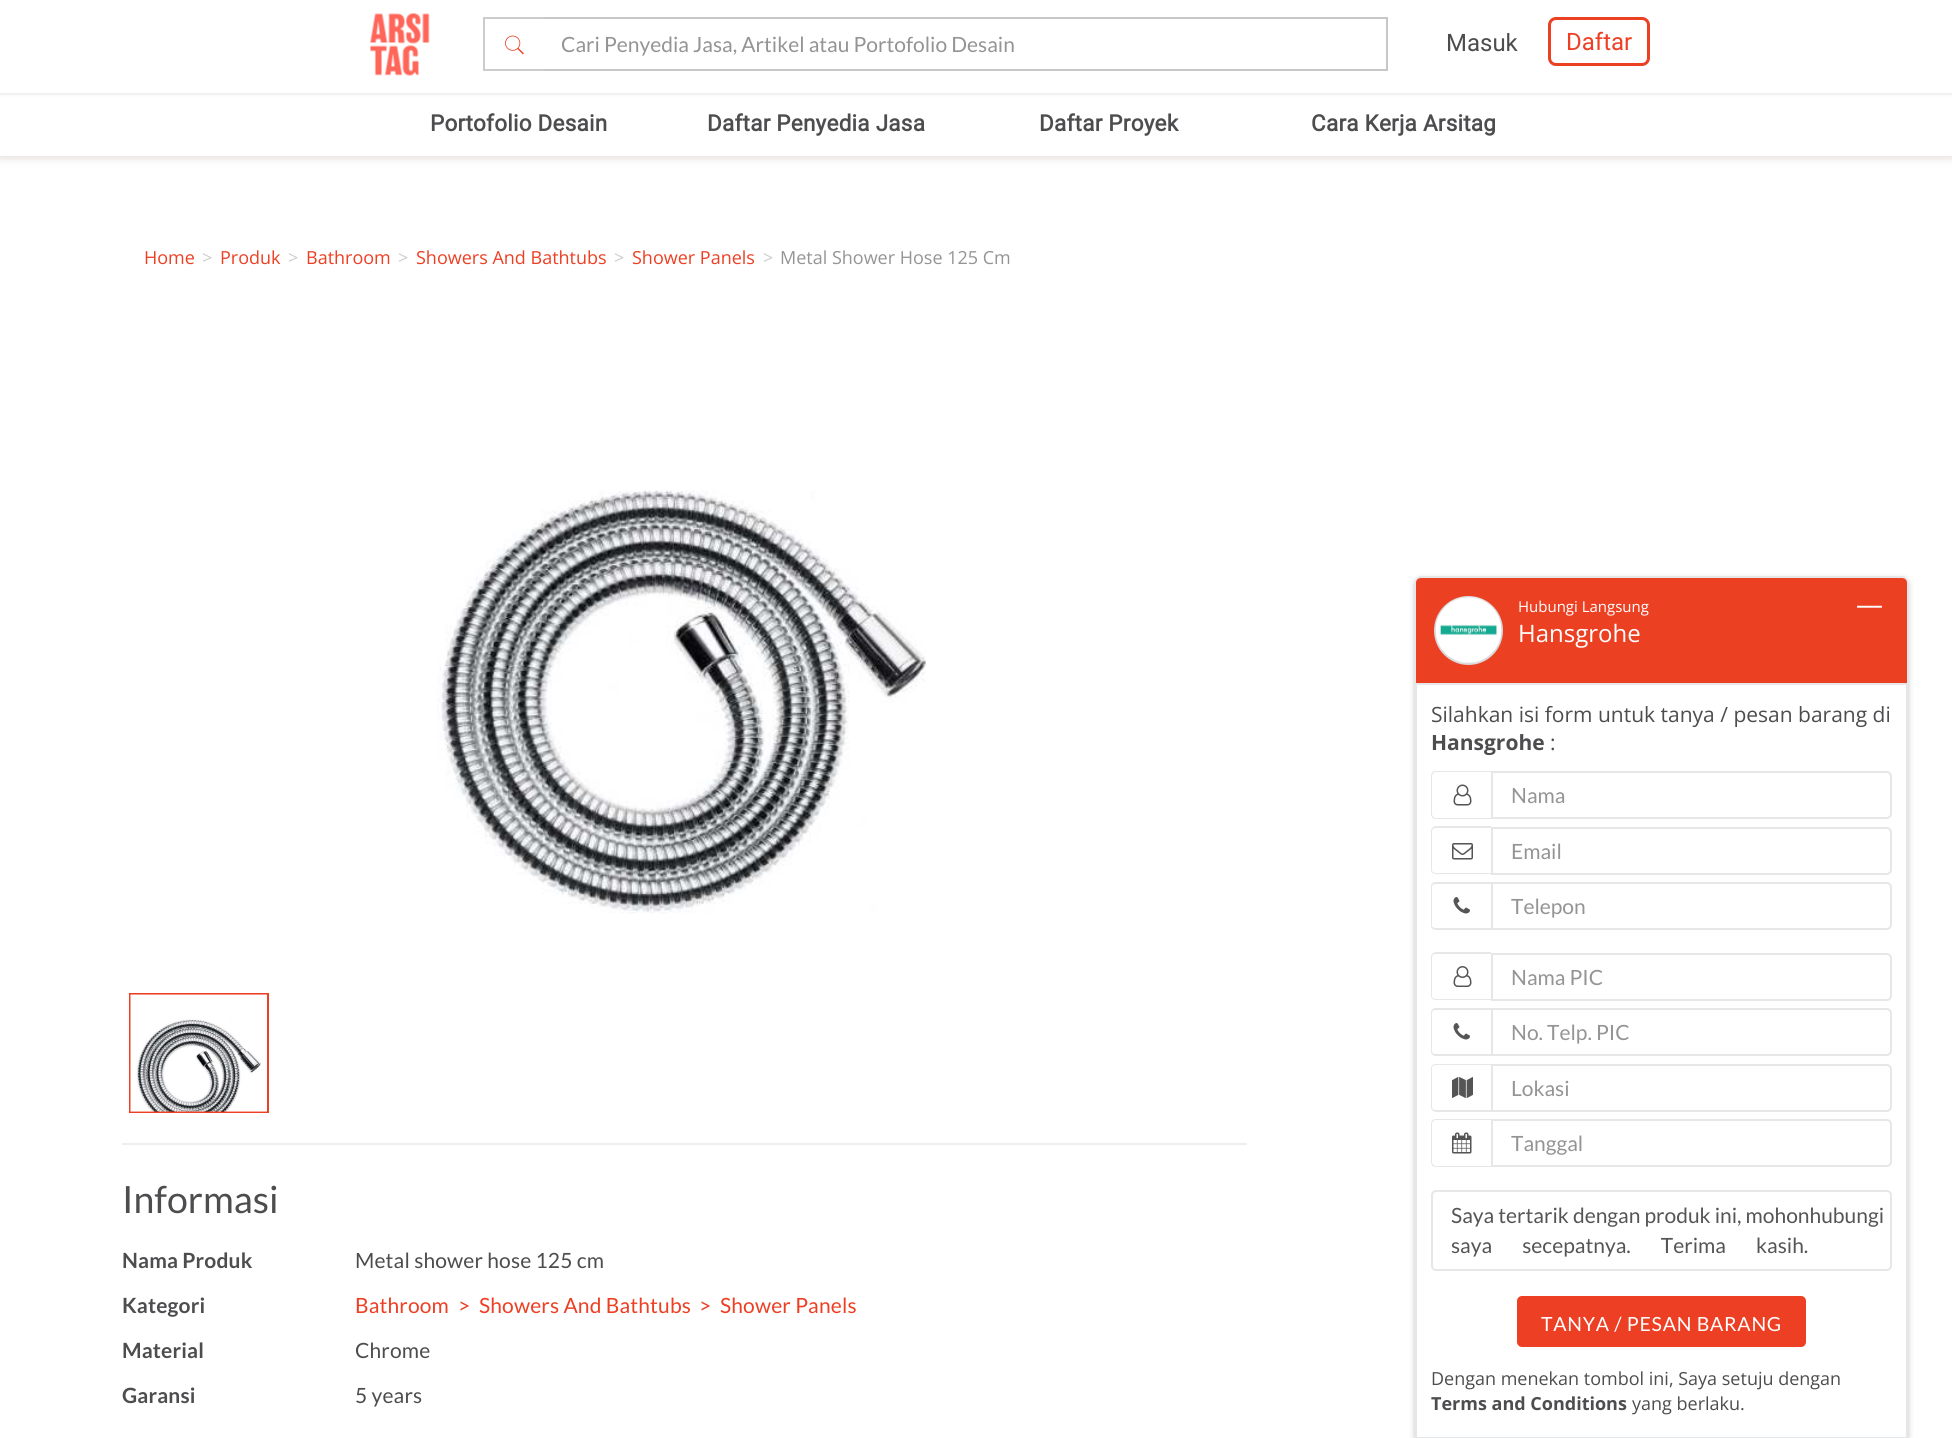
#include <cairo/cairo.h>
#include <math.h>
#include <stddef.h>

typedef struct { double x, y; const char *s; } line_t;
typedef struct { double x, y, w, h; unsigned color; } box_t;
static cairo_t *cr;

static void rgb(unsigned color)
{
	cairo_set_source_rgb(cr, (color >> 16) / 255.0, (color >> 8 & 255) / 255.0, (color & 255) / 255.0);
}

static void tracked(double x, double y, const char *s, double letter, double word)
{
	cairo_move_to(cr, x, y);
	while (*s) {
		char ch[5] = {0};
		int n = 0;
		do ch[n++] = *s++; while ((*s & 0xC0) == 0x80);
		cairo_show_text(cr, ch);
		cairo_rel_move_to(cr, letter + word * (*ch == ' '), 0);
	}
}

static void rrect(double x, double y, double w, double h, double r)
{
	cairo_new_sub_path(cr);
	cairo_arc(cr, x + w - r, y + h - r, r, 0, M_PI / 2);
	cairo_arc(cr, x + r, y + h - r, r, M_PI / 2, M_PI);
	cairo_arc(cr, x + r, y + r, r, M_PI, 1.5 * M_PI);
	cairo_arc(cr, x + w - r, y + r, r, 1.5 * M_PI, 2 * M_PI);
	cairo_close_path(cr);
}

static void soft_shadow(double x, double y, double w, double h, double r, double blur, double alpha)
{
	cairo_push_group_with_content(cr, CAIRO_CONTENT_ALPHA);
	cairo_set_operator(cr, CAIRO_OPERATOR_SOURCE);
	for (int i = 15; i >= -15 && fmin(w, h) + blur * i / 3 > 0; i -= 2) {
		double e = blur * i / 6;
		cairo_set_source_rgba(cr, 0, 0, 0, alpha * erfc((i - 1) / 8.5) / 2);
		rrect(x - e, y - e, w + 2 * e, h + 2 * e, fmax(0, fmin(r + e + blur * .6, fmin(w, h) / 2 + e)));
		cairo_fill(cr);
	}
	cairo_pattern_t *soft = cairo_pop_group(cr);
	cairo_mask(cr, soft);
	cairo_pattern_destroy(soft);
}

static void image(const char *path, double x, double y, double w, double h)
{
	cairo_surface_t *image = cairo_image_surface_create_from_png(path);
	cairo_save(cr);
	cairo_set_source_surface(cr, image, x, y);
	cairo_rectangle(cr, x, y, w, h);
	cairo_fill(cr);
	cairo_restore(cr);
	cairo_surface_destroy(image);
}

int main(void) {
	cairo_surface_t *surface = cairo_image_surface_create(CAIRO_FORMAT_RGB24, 1952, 1438);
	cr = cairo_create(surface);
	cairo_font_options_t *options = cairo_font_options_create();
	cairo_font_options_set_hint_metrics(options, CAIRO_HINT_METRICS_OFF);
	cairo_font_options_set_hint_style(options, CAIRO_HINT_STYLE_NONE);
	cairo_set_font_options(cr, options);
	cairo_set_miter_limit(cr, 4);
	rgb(0xffffff);
	cairo_paint(cr);
	cairo_save(cr);
	cairo_rectangle(cr, 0, 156, 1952, 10);
	cairo_clip(cr);
	rgb(0xe4dada);
	soft_shadow(0, 0, 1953, 158, 0, 4, 1);
	cairo_restore(cr);
	cairo_save(cr);
	cairo_rectangle(cr, 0, 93, 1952, 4);
	cairo_clip(cr);
	rgb(0xe6e7e8);
	soft_shadow(0, 0, 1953, 95, 0, 1, 0.7);
	cairo_restore(cr);
	image("img/1.png", 370, 13, 60, 63);
	{
		static const box_t items[] = {
			{483, 17, 62, 2, 0xcccccc},
			{483, 69, 62, 2, 0xcccccc},
			{483, 17, 2, 54, 0xcccccc},
		};
		for (size_t i = 0; i < sizeof items / sizeof *items; i++) {
			rgb(items[i].color);
			cairo_rectangle(cr, items[i].x, items[i].y, items[i].w, items[i].h);
			cairo_fill(cr);
		}
	}
	image("img/2.png", 505, 35, 19, 20);
	{
		static const box_t items[] = {
			{543, 17, 845, 2, 0xc5c7c9},
			{1386, 17, 2, 54, 0xc5c7c9},
			{543, 69, 845, 2, 0xc5c7c9},
		};
		for (size_t i = 0; i < sizeof items / sizeof *items; i++) {
			rgb(items[i].color);
			cairo_rectangle(cr, items[i].x, items[i].y, items[i].w, items[i].h);
			cairo_fill(cr);
		}
	}
	rrect(1549.5, 18.5, 99, 46, 6.5);
	rgb(0xec4023);
	cairo_set_line_width(cr, 3);
	cairo_stroke(cr);
	image("img/3.png", 437, 490, 489, 424);
	cairo_rectangle(cr, 130, 994, 138, 118);
	rgb(0xed3f23);
	cairo_set_line_width(cr, 2);
	cairo_stroke(cr);
	image("img/4.png", 130, 994, 137, 118);
	rgb(0xeeeeee);
	cairo_rectangle(cr, 122, 1143, 1125, 2);
	cairo_fill(cr);
	cairo_save(cr);
	cairo_set_fill_rule(cr, CAIRO_FILL_RULE_EVEN_ODD);
	cairo_new_path(cr);
	cairo_move_to(cr, 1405, 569);
	cairo_line_to(cr, 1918, 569);
	cairo_line_to(cr, 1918, 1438);
	cairo_line_to(cr, 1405, 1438);
	cairo_close_path(cr);
	cairo_move_to(cr, 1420, 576);
	cairo_line_to(cr, 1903, 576);
	cairo_curve_to(cr, 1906, 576, 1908, 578, 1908, 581);
	cairo_line_to(cr, 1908, 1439);
	cairo_line_to(cr, 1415, 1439);
	cairo_line_to(cr, 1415, 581);
	cairo_curve_to(cr, 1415, 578, 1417, 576, 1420, 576);
	cairo_close_path(cr);
	cairo_clip(cr);
	rgb(0x878787);
	soft_shadow(1415, 579, 493, 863, 5, 3, 0.5);
	cairo_restore(cr);
	cairo_new_path(cr);
	cairo_move_to(cr, 1420, 577);
	cairo_line_to(cr, 1903, 577);
	cairo_curve_to(cr, 1905, 577, 1907, 579, 1907, 581);
	cairo_line_to(cr, 1907, 1438);
	cairo_line_to(cr, 1416, 1438);
	cairo_line_to(cr, 1416, 581);
	cairo_curve_to(cr, 1416, 579, 1418, 577, 1420, 577);
	cairo_close_path(cr);
	rgb(0xe6e7e8);
	cairo_stroke(cr);
	rgb(0xec4023);
	cairo_new_path(cr);
	cairo_move_to(cr, 1421, 578);
	cairo_line_to(cr, 1902, 578);
	cairo_curve_to(cr, 1905, 578, 1907, 580, 1907, 583);
	cairo_line_to(cr, 1907, 684);
	cairo_line_to(cr, 1416, 684);
	cairo_line_to(cr, 1416, 583);
	cairo_curve_to(cr, 1416, 580, 1418, 578, 1421, 578);
	cairo_close_path(cr);
	cairo_fill(cr);
	rgb(0xe6e7e8);
	cairo_rectangle(cr, 1416, 683, 491, 2);
	cairo_fill(cr);
	rgb(0xd8d8d8);
	cairo_arc(cr, 1468.5, 630.5, 33.5, 0, 2 * M_PI);
	cairo_fill_preserve(cr);
	cairo_stroke(cr);
	image("img/5.png", 1435, 596, 67, 68);
	rgb(0xe6e7e8);
	cairo_set_fill_rule(cr, CAIRO_FILL_RULE_EVEN_ODD);
	cairo_new_path(cr);
	cairo_move_to(cr, 1436, 771);
	cairo_line_to(cr, 1491, 771);
	cairo_line_to(cr, 1491, 819);
	cairo_line_to(cr, 1436, 819);
	cairo_curve_to(cr, 1433, 819, 1431, 817, 1431, 814);
	cairo_line_to(cr, 1431, 776);
	cairo_curve_to(cr, 1431, 773, 1433, 771, 1436, 771);
	cairo_close_path(cr);
	cairo_move_to(cr, 1436, 772);
	cairo_line_to(cr, 1491, 772);
	cairo_line_to(cr, 1491, 818);
	cairo_line_to(cr, 1436, 818);
	cairo_curve_to(cr, 1434, 818, 1432, 816, 1432, 814);
	cairo_line_to(cr, 1432, 776);
	cairo_curve_to(cr, 1432, 774, 1434, 772, 1436, 772);
	cairo_close_path(cr);
	cairo_fill(cr);
	image("img/6.png", 1453, 784, 19, 22);
	cairo_new_path(cr);
	cairo_move_to(cr, 1492, 772);
	cairo_line_to(cr, 1887, 772);
	cairo_curve_to(cr, 1889, 772, 1891, 774, 1891, 776);
	cairo_line_to(cr, 1891, 814);
	cairo_curve_to(cr, 1891, 816, 1889, 818, 1887, 818);
	cairo_line_to(cr, 1492, 818);
	cairo_close_path(cr);
	cairo_stroke(cr);
	cairo_new_path(cr);
	cairo_move_to(cr, 1436, 826);
	cairo_line_to(cr, 1491, 826);
	cairo_line_to(cr, 1491, 874);
	cairo_line_to(cr, 1436, 874);
	cairo_curve_to(cr, 1433, 874, 1431, 872, 1431, 870);
	cairo_line_to(cr, 1431, 831);
	cairo_curve_to(cr, 1431, 829, 1433, 826, 1436, 826);
	cairo_close_path(cr);
	cairo_move_to(cr, 1436, 828);
	cairo_line_to(cr, 1491, 828);
	cairo_line_to(cr, 1491, 873);
	cairo_line_to(cr, 1436, 873);
	cairo_curve_to(cr, 1434, 873, 1432, 872, 1432, 870);
	cairo_line_to(cr, 1432, 831);
	cairo_curve_to(cr, 1432, 829, 1434, 828, 1436, 828);
	cairo_close_path(cr);
	cairo_fill(cr);
	image("img/7.png", 1452, 843, 21, 17);
	cairo_new_path(cr);
	cairo_move_to(cr, 1492, 828);
	cairo_line_to(cr, 1887, 828);
	cairo_curve_to(cr, 1889, 828, 1891, 830, 1891, 832);
	cairo_line_to(cr, 1891, 870);
	cairo_curve_to(cr, 1891, 872, 1889, 874, 1887, 874);
	cairo_line_to(cr, 1492, 874);
	cairo_close_path(cr);
	cairo_stroke(cr);
	cairo_new_path(cr);
	cairo_move_to(cr, 1436, 882);
	cairo_line_to(cr, 1491, 882);
	cairo_line_to(cr, 1491, 930);
	cairo_line_to(cr, 1436, 930);
	cairo_curve_to(cr, 1433, 930, 1431, 928, 1431, 926);
	cairo_line_to(cr, 1431, 886);
	cairo_curve_to(cr, 1431, 884, 1433, 882, 1436, 882);
	cairo_close_path(cr);
	cairo_move_to(cr, 1436, 884);
	cairo_line_to(cr, 1491, 884);
	cairo_line_to(cr, 1491, 928);
	cairo_line_to(cr, 1436, 928);
	cairo_curve_to(cr, 1434, 928, 1432, 927, 1432, 926);
	cairo_line_to(cr, 1432, 886);
	cairo_curve_to(cr, 1432, 885, 1434, 884, 1436, 884);
	cairo_close_path(cr);
	cairo_fill(cr);
	image("img/8.png", 1453, 897, 17, 17);
	cairo_new_path(cr);
	cairo_move_to(cr, 1492, 883);
	cairo_line_to(cr, 1887, 883);
	cairo_curve_to(cr, 1889, 883, 1891, 885, 1891, 887);
	cairo_line_to(cr, 1891, 925);
	cairo_curve_to(cr, 1891, 927, 1889, 929, 1887, 929);
	cairo_line_to(cr, 1492, 929);
	cairo_close_path(cr);
	cairo_stroke(cr);
	cairo_new_path(cr);
	cairo_move_to(cr, 1436, 952);
	cairo_line_to(cr, 1491, 952);
	cairo_line_to(cr, 1491, 1000);
	cairo_line_to(cr, 1436, 1000);
	cairo_curve_to(cr, 1433, 1000, 1431, 998, 1431, 996);
	cairo_line_to(cr, 1431, 957);
	cairo_curve_to(cr, 1431, 955, 1433, 952, 1436, 952);
	cairo_close_path(cr);
	cairo_move_to(cr, 1436, 954);
	cairo_line_to(cr, 1491, 954);
	cairo_line_to(cr, 1491, 999);
	cairo_line_to(cr, 1436, 999);
	cairo_curve_to(cr, 1434, 999, 1432, 998, 1432, 996);
	cairo_line_to(cr, 1432, 957);
	cairo_curve_to(cr, 1432, 955, 1434, 954, 1436, 954);
	cairo_close_path(cr);
	cairo_fill(cr);
	image("img/9.png", 1453, 966, 19, 21);
	cairo_new_path(cr);
	cairo_move_to(cr, 1492, 954);
	cairo_line_to(cr, 1887, 954);
	cairo_curve_to(cr, 1889, 954, 1891, 956, 1891, 958);
	cairo_line_to(cr, 1891, 996);
	cairo_curve_to(cr, 1891, 998, 1889, 1000, 1887, 1000);
	cairo_line_to(cr, 1492, 1000);
	cairo_close_path(cr);
	cairo_stroke(cr);
	cairo_new_path(cr);
	cairo_move_to(cr, 1436, 1008);
	cairo_line_to(cr, 1491, 1008);
	cairo_line_to(cr, 1491, 1056);
	cairo_line_to(cr, 1436, 1056);
	cairo_curve_to(cr, 1433, 1056, 1431, 1054, 1431, 1052);
	cairo_line_to(cr, 1431, 1012);
	cairo_curve_to(cr, 1431, 1010, 1433, 1008, 1436, 1008);
	cairo_close_path(cr);
	cairo_move_to(cr, 1436, 1010);
	cairo_line_to(cr, 1491, 1010);
	cairo_line_to(cr, 1491, 1054);
	cairo_line_to(cr, 1436, 1054);
	cairo_curve_to(cr, 1434, 1054, 1432, 1053, 1432, 1052);
	cairo_line_to(cr, 1432, 1012);
	cairo_curve_to(cr, 1432, 1011, 1434, 1010, 1436, 1010);
	cairo_close_path(cr);
	cairo_fill(cr);
	image("img/8.png", 1453, 1023, 17, 17);
	cairo_new_path(cr);
	cairo_move_to(cr, 1492, 1009);
	cairo_line_to(cr, 1887, 1009);
	cairo_curve_to(cr, 1889, 1009, 1891, 1011, 1891, 1013);
	cairo_line_to(cr, 1891, 1051);
	cairo_curve_to(cr, 1891, 1053, 1889, 1055, 1887, 1055);
	cairo_line_to(cr, 1492, 1055);
	cairo_close_path(cr);
	cairo_stroke(cr);
	cairo_new_path(cr);
	cairo_move_to(cr, 1436, 1064);
	cairo_line_to(cr, 1491, 1064);
	cairo_line_to(cr, 1491, 1112);
	cairo_line_to(cr, 1436, 1112);
	cairo_curve_to(cr, 1433, 1112, 1431, 1109, 1431, 1107);
	cairo_line_to(cr, 1431, 1068);
	cairo_curve_to(cr, 1431, 1066, 1433, 1064, 1436, 1064);
	cairo_close_path(cr);
	cairo_move_to(cr, 1436, 1065);
	cairo_line_to(cr, 1491, 1065);
	cairo_line_to(cr, 1491, 1110);
	cairo_line_to(cr, 1436, 1110);
	cairo_curve_to(cr, 1434, 1110, 1432, 1109, 1432, 1107);
	cairo_line_to(cr, 1432, 1068);
	cairo_curve_to(cr, 1432, 1066, 1434, 1065, 1436, 1065);
	cairo_close_path(cr);
	cairo_fill(cr);
	image("img/10.png", 1452, 1077, 21, 21);
	cairo_new_path(cr);
	cairo_move_to(cr, 1492, 1065);
	cairo_line_to(cr, 1887, 1065);
	cairo_curve_to(cr, 1889, 1065, 1891, 1067, 1891, 1069);
	cairo_line_to(cr, 1891, 1107);
	cairo_curve_to(cr, 1891, 1109, 1889, 1111, 1887, 1111);
	cairo_line_to(cr, 1492, 1111);
	cairo_close_path(cr);
	cairo_stroke(cr);
	cairo_new_path(cr);
	cairo_move_to(cr, 1436, 1119);
	cairo_line_to(cr, 1491, 1119);
	cairo_line_to(cr, 1491, 1167);
	cairo_line_to(cr, 1436, 1167);
	cairo_curve_to(cr, 1433, 1167, 1431, 1165, 1431, 1162);
	cairo_line_to(cr, 1431, 1124);
	cairo_curve_to(cr, 1431, 1121, 1433, 1119, 1436, 1119);
	cairo_close_path(cr);
	cairo_move_to(cr, 1436, 1120);
	cairo_line_to(cr, 1491, 1120);
	cairo_line_to(cr, 1491, 1166);
	cairo_line_to(cr, 1436, 1166);
	cairo_curve_to(cr, 1434, 1166, 1432, 1164, 1432, 1162);
	cairo_line_to(cr, 1432, 1124);
	cairo_curve_to(cr, 1432, 1122, 1434, 1120, 1436, 1120);
	cairo_close_path(cr);
	cairo_fill(cr);
	image("img/11.png", 1452, 1132, 20, 22);
	cairo_new_path(cr);
	cairo_move_to(cr, 1492, 1120);
	cairo_line_to(cr, 1887, 1120);
	cairo_curve_to(cr, 1889, 1120, 1891, 1122, 1891, 1124);
	cairo_line_to(cr, 1891, 1162);
	cairo_curve_to(cr, 1891, 1164, 1889, 1166, 1887, 1166);
	cairo_line_to(cr, 1492, 1166);
	cairo_close_path(cr);
	cairo_stroke(cr);
	rrect(1432, 1191, 459, 79, 4);
	cairo_stroke(cr);
	rgb(0xed3f23);
	rrect(1517, 1296, 289, 51, 5);
	cairo_fill(cr);
	cairo_select_font_face(cr, "Lato", CAIRO_FONT_SLANT_NORMAL, CAIRO_FONT_WEIGHT_NORMAL);
	cairo_set_font_size(cr, 21);
	rgb(0x949495);
	cairo_move_to(cr, 561, 52);
	cairo_show_text(cr, "Cari Penyedia Jasa, Artikel atau Portofolio Desain");
	cairo_select_font_face(cr, "Roboto", CAIRO_FONT_SLANT_NORMAL, CAIRO_FONT_WEIGHT_NORMAL);
	cairo_set_font_size(cr, 24);
	rgb(0x4d4d4f);
	cairo_move_to(cr, 1446, 51);
	cairo_show_text(cr, "Masuk");
	rgb(0xed3f23);
	cairo_move_to(cr, 1566, 50);
	cairo_show_text(cr, "Daftar");
	cairo_select_font_face(cr, "Roboto", CAIRO_FONT_SLANT_NORMAL, CAIRO_FONT_WEIGHT_BOLD);
	cairo_set_font_size(cr, 22.5);
	rgb(0x4d4d4f);
	{
		static const line_t items[] = {
			{430, 131, "Portofolio Desain"},
			{707, 131, "Daftar Penyedia Jasa"},
			{1039, 131, "Daftar Proyek"},
			{1311, 131, "Cara Kerja Arsitag"},
		};
		for (size_t i = 0; i < sizeof items / sizeof *items; i++) {
			tracked(items[i].x, items[i].y, items[i].s, 0.25, 0);
		}
	}
	cairo_select_font_face(cr, "Open Sans", CAIRO_FONT_SLANT_NORMAL, CAIRO_FONT_WEIGHT_NORMAL);
	cairo_set_font_size(cr, 18);
	rgb(0xed3f23);
	cairo_move_to(cr, 144, 264);
	cairo_show_text(cr, "Home");
	rgb(0xcccccc);
	cairo_move_to(cr, 202, 264);
	cairo_show_text(cr, ">");
	rgb(0xed3f23);
	cairo_move_to(cr, 220, 264);
	cairo_show_text(cr, "Produk");
	rgb(0xcccccc);
	cairo_move_to(cr, 288, 264);
	cairo_show_text(cr, ">");
	rgb(0xed3f23);
	cairo_move_to(cr, 306, 264);
	cairo_show_text(cr, "Bathroom");
	rgb(0xcccccc);
	cairo_move_to(cr, 398, 264);
	cairo_show_text(cr, ">");
	rgb(0xed3f23);
	cairo_move_to(cr, 416, 264);
	cairo_show_text(cr, "Showers And Bathtubs");
	rgb(0xcccccc);
	cairo_move_to(cr, 614, 264);
	cairo_show_text(cr, ">");
	rgb(0xed3f23);
	cairo_move_to(cr, 632, 264);
	cairo_show_text(cr, "Shower Panels");
	rgb(0xcccccc);
	cairo_move_to(cr, 763, 264);
	cairo_show_text(cr, ">");
	rgb(0x949495);
	cairo_move_to(cr, 780, 264);
	cairo_show_text(cr, "Metal Shower Hose 125 Cm");
	cairo_select_font_face(cr, "Lato", CAIRO_FONT_SLANT_NORMAL, CAIRO_FONT_WEIGHT_NORMAL);
	cairo_set_font_size(cr, 37.5);
	rgb(0x4d4d4f);
	cairo_move_to(cr, 122, 1213);
	cairo_show_text(cr, "Informasi");
	cairo_select_font_face(cr, "Lato", CAIRO_FONT_SLANT_NORMAL, CAIRO_FONT_WEIGHT_BOLD);
	cairo_set_font_size(cr, 21);
	tracked(122, 1268, "Nama Produk", 0.15, 0);
	cairo_select_font_face(cr, "Lato", CAIRO_FONT_SLANT_NORMAL, CAIRO_FONT_WEIGHT_NORMAL);
	tracked(355, 1268, "Metal shower hose 125 cm", 0.15, 0);
	cairo_select_font_face(cr, "Lato", CAIRO_FONT_SLANT_NORMAL, CAIRO_FONT_WEIGHT_BOLD);
	tracked(122, 1313, "Kategori", 0.15, 0);
	cairo_select_font_face(cr, "Lato", CAIRO_FONT_SLANT_NORMAL, CAIRO_FONT_WEIGHT_NORMAL);
	rgb(0xed3f23);
	{
		static const line_t items[] = {
			{355, 1313, "Bathroom"},
			{458, 1313, ">"},
			{479, 1313, "Showers And Bathtubs"},
			{699, 1313, ">"},
			{720, 1313, "Shower Panels"},
		};
		for (size_t i = 0; i < sizeof items / sizeof *items; i++) {
			tracked(items[i].x, items[i].y, items[i].s, 0.15, 0);
		}
	}
	cairo_select_font_face(cr, "Lato", CAIRO_FONT_SLANT_NORMAL, CAIRO_FONT_WEIGHT_BOLD);
	rgb(0x4d4d4f);
	tracked(122, 1358, "Material", 0.15, 0);
	cairo_select_font_face(cr, "Lato", CAIRO_FONT_SLANT_NORMAL, CAIRO_FONT_WEIGHT_NORMAL);
	tracked(355, 1358, "Chrome", 0.15, 0);
	cairo_select_font_face(cr, "Lato", CAIRO_FONT_SLANT_NORMAL, CAIRO_FONT_WEIGHT_BOLD);
	tracked(122, 1403, "Garansi", 0.15, 0);
	cairo_select_font_face(cr, "Lato", CAIRO_FONT_SLANT_NORMAL, CAIRO_FONT_WEIGHT_NORMAL);
	tracked(355, 1403, "5 years", 0.15, 0);
	cairo_select_font_face(cr, "Open Sans", CAIRO_FONT_SLANT_NORMAL, CAIRO_FONT_WEIGHT_NORMAL);
	cairo_set_font_size(cr, 15);
	rgb(0xffffff);
	cairo_move_to(cr, 1518, 612);
	cairo_show_text(cr, "Hubungi Langsung");
	cairo_set_font_size(cr, 24);
	cairo_move_to(cr, 1518, 642);
	cairo_show_text(cr, "Hansgrohe");
	cairo_set_font_size(cr, 27);
	cairo_move_to(cr, 1856, 614);
	cairo_show_text(cr, "—");
	cairo_set_font_size(cr, 21);
	rgb(0x4d4d4f);
	cairo_move_to(cr, 1431, 722);
	cairo_show_text(cr, "Silahkan isi form untuk tanya / pesan barang di");
	cairo_select_font_face(cr, "Open Sans", CAIRO_FONT_SLANT_NORMAL, CAIRO_FONT_WEIGHT_BOLD);
	cairo_move_to(cr, 1431, 750);
	cairo_show_text(cr, "Hansgrohe");
	cairo_select_font_face(cr, "Open Sans", CAIRO_FONT_SLANT_NORMAL, CAIRO_FONT_WEIGHT_NORMAL);
	cairo_move_to(cr, 1550, 750);
	cairo_show_text(cr, ":");
	cairo_select_font_face(cr, "Lato", CAIRO_FONT_SLANT_NORMAL, CAIRO_FONT_WEIGHT_NORMAL);
	rgb(0x949495);
	{
		static const line_t items[] = {
			{1511, 803, "Nama"},
			{1511, 859, "Email"},
			{1511, 914, "Telepon"},
			{1511, 985, "Nama PIC"},
			{1511, 1040, "No. Telp. PIC"},
			{1511, 1096, "Lokasi"},
			{1511, 1151, "Tanggal"},
		};
		for (size_t i = 0; i < sizeof items / sizeof *items; i++) {
			cairo_move_to(cr, items[i].x, items[i].y);
			cairo_show_text(cr, items[i].s);
		}
	}
	rgb(0x555555);
	cairo_move_to(cr, 1451, 1223);
	cairo_show_text(cr, "Saya tertarik dengan produk ini, mohonhubungi");
	tracked(1451, 1253, "saya secepatnya. Terima kasih.", 0, 26);
	cairo_set_font_size(cr, 19.5);
	rgb(0xffffff);
	tracked(1541, 1331, "TANYA / PESAN BARANG", 0.75, 0);
	cairo_select_font_face(cr, "Open Sans", CAIRO_FONT_SLANT_NORMAL, CAIRO_FONT_WEIGHT_NORMAL);
	cairo_set_font_size(cr, 18);
	rgb(0x4d4d4f);
	cairo_move_to(cr, 1431, 1385);
	cairo_show_text(cr, "Dengan menekan tombol ini, Saya setuju dengan");
	cairo_select_font_face(cr, "Open Sans", CAIRO_FONT_SLANT_NORMAL, CAIRO_FONT_WEIGHT_BOLD);
	cairo_move_to(cr, 1431, 1410);
	cairo_show_text(cr, "Terms and Conditions");
	cairo_select_font_face(cr, "Open Sans", CAIRO_FONT_SLANT_NORMAL, CAIRO_FONT_WEIGHT_NORMAL);
	cairo_move_to(cr, 1632, 1410);
	cairo_show_text(cr, "yang berlaku.");
	cairo_surface_write_to_png(surface, "page.png");
	cairo_font_options_destroy(options);
	cairo_destroy(cr);
	cairo_surface_destroy(surface);
	return 0;
}
